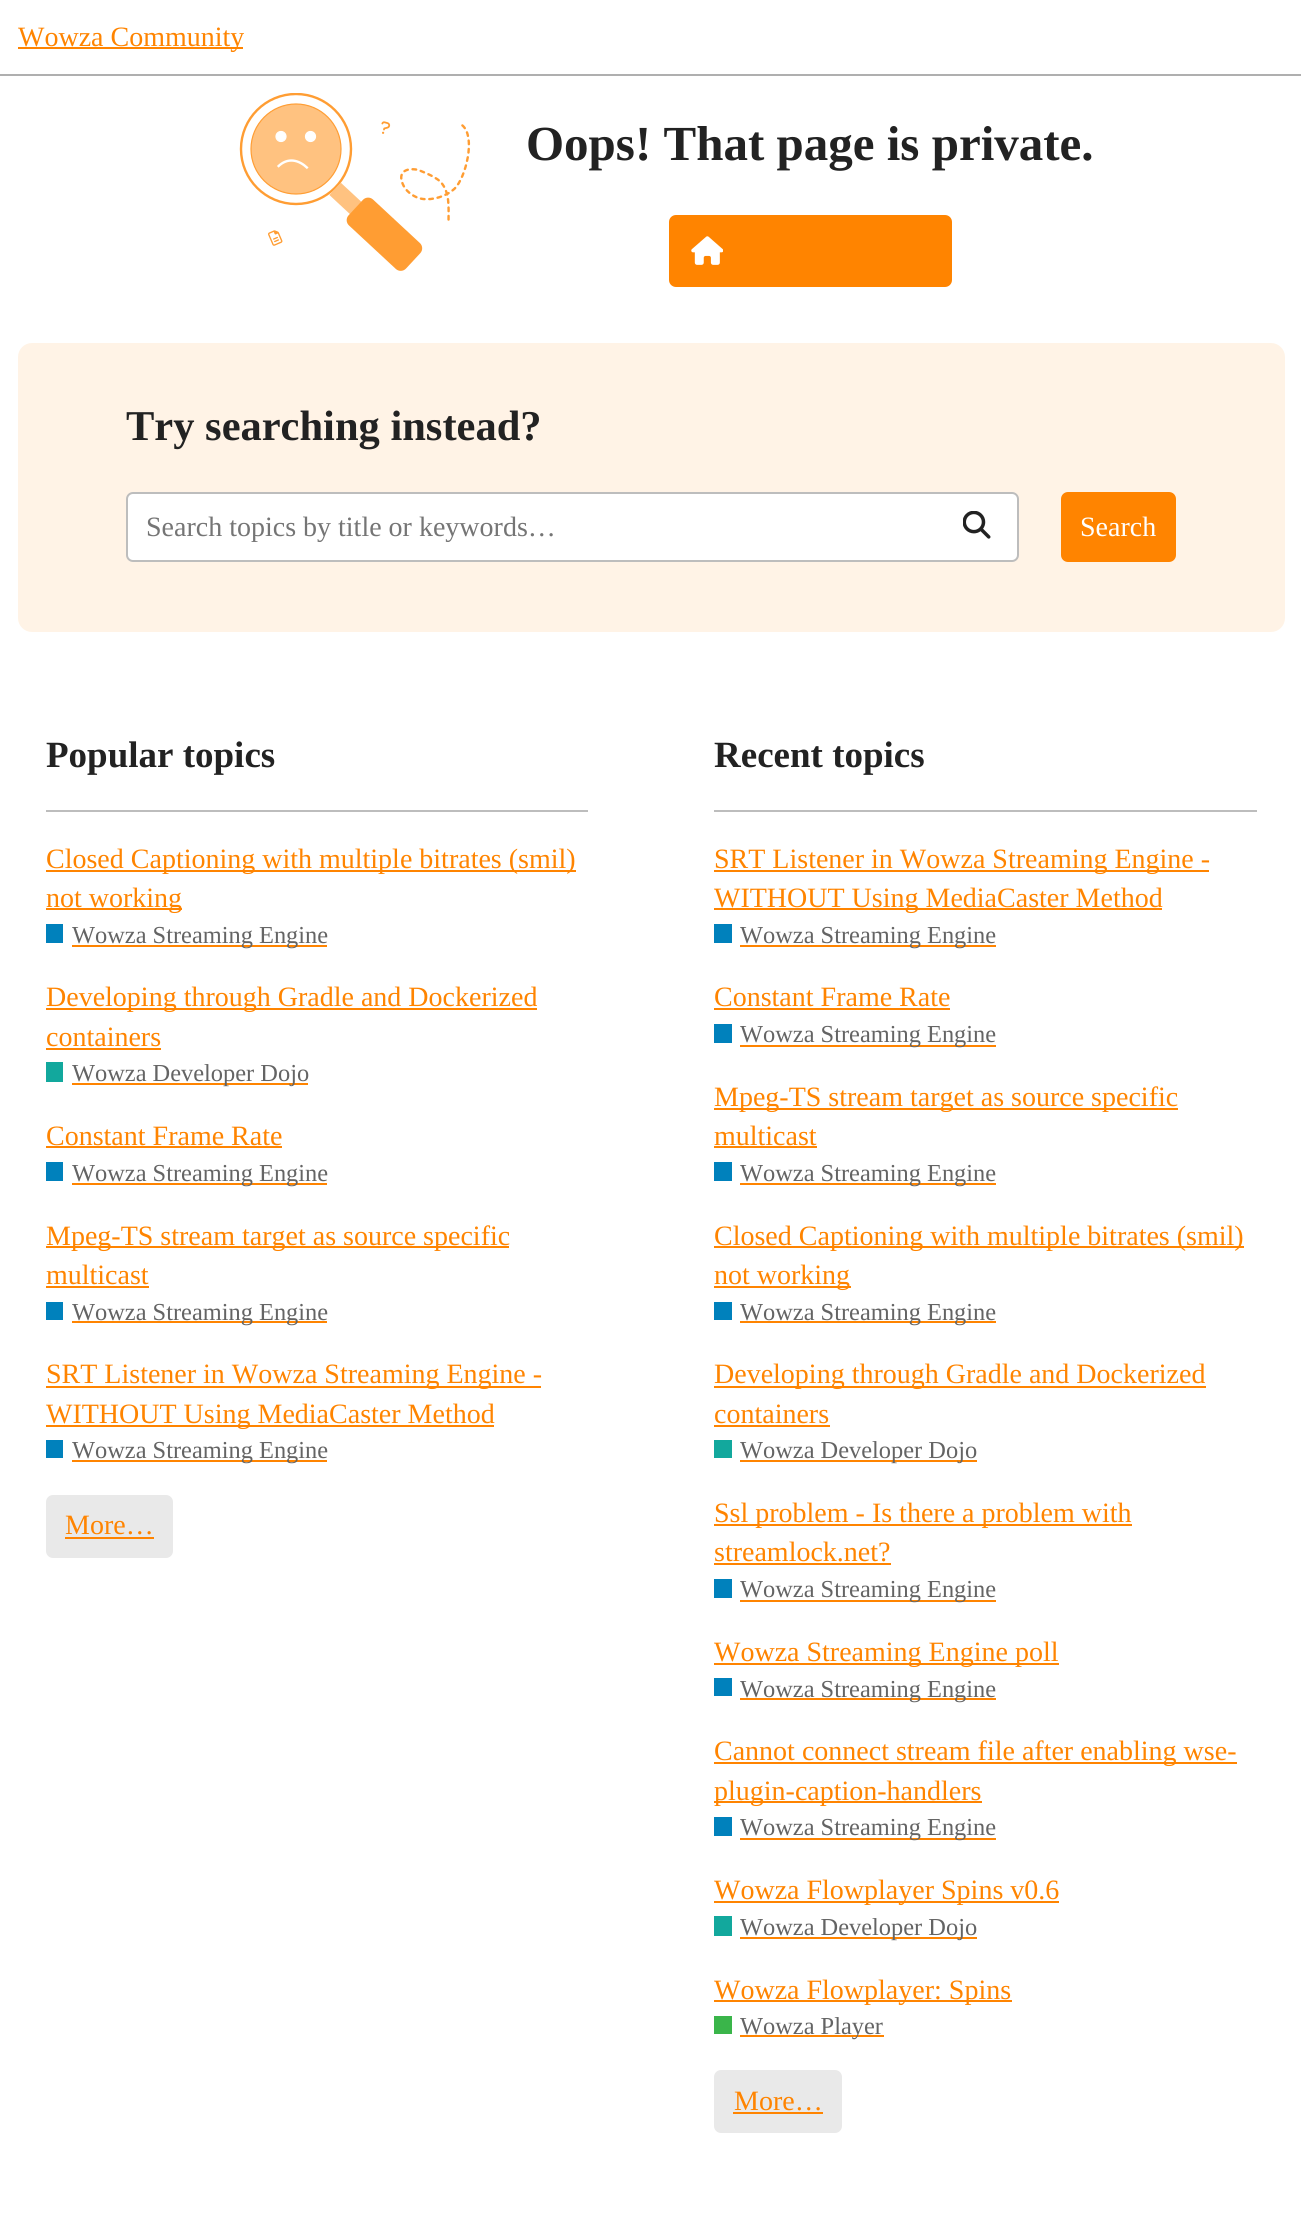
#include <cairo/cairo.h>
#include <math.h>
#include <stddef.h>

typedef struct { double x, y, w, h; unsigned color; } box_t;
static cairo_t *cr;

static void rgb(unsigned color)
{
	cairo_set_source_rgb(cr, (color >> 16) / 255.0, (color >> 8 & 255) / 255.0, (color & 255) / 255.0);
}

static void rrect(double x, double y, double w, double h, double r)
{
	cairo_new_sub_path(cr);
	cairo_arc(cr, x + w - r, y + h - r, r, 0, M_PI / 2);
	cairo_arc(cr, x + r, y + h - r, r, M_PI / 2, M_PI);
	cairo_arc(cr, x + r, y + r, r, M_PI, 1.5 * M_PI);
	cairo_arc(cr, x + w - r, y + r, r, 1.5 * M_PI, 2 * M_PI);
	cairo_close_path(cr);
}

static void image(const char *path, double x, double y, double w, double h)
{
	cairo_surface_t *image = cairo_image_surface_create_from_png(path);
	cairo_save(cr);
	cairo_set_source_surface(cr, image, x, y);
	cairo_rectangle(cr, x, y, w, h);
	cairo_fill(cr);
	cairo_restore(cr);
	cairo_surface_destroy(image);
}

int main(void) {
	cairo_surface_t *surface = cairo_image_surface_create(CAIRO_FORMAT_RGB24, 1301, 2232);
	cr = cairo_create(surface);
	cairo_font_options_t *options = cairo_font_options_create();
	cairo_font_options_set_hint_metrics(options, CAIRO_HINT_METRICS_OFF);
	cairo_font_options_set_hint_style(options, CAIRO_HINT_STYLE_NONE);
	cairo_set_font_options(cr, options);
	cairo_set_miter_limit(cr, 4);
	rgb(0xffffff);
	cairo_paint(cr);
	rgb(0xafafaf);
	cairo_rectangle(cr, 0, 74, 1301, 2);
	cairo_fill(cr);
	rgb(0xff8400);
	cairo_rectangle(cr, 18, 47, 225, 2);
	cairo_fill(cr);
	image("img/1.png", 239, 93, 232, 178);
	rrect(669, 215, 283, 72, 7);
	cairo_fill(cr);
	image("img/2.png", 691, 236, 32, 29);
	rgb(0xfff3e6);
	rrect(18, 343, 1267, 289, 14);
	cairo_fill(cr);
	rgb(0xffffff);
	rrect(127, 493, 891, 68, 6);
	cairo_fill_preserve(cr);
	rgb(0xbdbdbd);
	cairo_stroke(cr);
	image("img/3.png", 963, 511, 28, 28);
	rgb(0xff8400);
	rrect(1061, 492, 115, 70, 7);
	cairo_fill(cr);
	{
		static const box_t items[] = {
			{46, 810, 542, 2, 0xbdbdbd},
			{46, 870, 530, 2, 0xff8400},
			{46, 908, 136, 2, 0xff8400},
			{46, 924, 17, 19, 0x0081bc},
			{72, 945, 255, 2, 0xff8400},
			{46, 1008, 491, 2, 0xff8400},
			{46, 1048, 115, 2, 0xff8400},
			{46, 1062, 17, 20, 0x12a89d},
			{72, 1083, 236, 2, 0xff8400},
			{46, 1146, 236, 2, 0xff8400},
			{46, 1162, 17, 19, 0x0081bc},
			{72, 1183, 255, 2, 0xff8400},
			{46, 1246, 463, 2, 0xff8400},
			{46, 1286, 103, 2, 0xff8400},
			{46, 1302, 17, 18, 0x0081bc},
			{72, 1321, 255, 2, 0xff8400},
			{46, 1386, 495, 2, 0xff8400},
			{46, 1425, 448, 2, 0xff8400},
			{46, 1440, 17, 18, 0x0081bc},
			{72, 1460, 255, 2, 0xff8400},
		};
		for (size_t i = 0; i < sizeof items / sizeof *items; i++) {
			rgb(items[i].color);
			cairo_rectangle(cr, items[i].x, items[i].y, items[i].w, items[i].h);
			cairo_fill(cr);
		}
	}
	rgb(0xe9e9e9);
	rrect(46, 1495, 127, 63, 7);
	cairo_fill(cr);
	{
		static const box_t items[] = {
			{65, 1537, 89, 2, 0xff8400},
			{714, 810, 543, 2, 0xbdbdbd},
			{714, 870, 495, 2, 0xff8400},
			{714, 908, 448, 2, 0xff8400},
			{714, 924, 18, 19, 0x0081bc},
			{740, 945, 256, 2, 0xff8400},
			{714, 1008, 236, 2, 0xff8400},
			{714, 1024, 18, 19, 0x0081bc},
			{740, 1045, 256, 2, 0xff8400},
			{714, 1108, 464, 2, 0xff8400},
			{714, 1146, 103, 2, 0xff8400},
			{714, 1162, 18, 19, 0x0081bc},
			{740, 1183, 256, 2, 0xff8400},
			{714, 1246, 530, 2, 0xff8400},
			{714, 1286, 137, 2, 0xff8400},
			{714, 1302, 18, 18, 0x0081bc},
			{740, 1321, 256, 2, 0xff8400},
			{714, 1386, 492, 2, 0xff8400},
			{714, 1425, 116, 2, 0xff8400},
			{714, 1440, 18, 18, 0x12a89d},
			{740, 1460, 237, 2, 0xff8400},
			{714, 1524, 418, 2, 0xff8400},
			{714, 1563, 177, 2, 0xff8400},
			{714, 1579, 18, 19, 0x0081bc},
			{740, 1600, 256, 2, 0xff8400},
			{714, 1663, 345, 2, 0xff8400},
			{714, 1678, 18, 18, 0x0081bc},
			{740, 1698, 256, 2, 0xff8400},
			{714, 1762, 523, 2, 0xff8400},
			{714, 1801, 268, 2, 0xff8400},
			{714, 1817, 18, 19, 0x0081bc},
			{740, 1838, 256, 2, 0xff8400},
			{714, 1901, 345, 2, 0xff8400},
			{714, 1916, 18, 20, 0x12a89d},
			{740, 1937, 237, 2, 0xff8400},
			{714, 2000, 298, 2, 0xff8400},
			{714, 2016, 18, 18, 0x3ab54a},
			{740, 2035, 144, 2, 0xff8400},
		};
		for (size_t i = 0; i < sizeof items / sizeof *items; i++) {
			rgb(items[i].color);
			cairo_rectangle(cr, items[i].x, items[i].y, items[i].w, items[i].h);
			cairo_fill(cr);
		}
	}
	rgb(0xe9e9e9);
	rrect(714, 2070, 128, 63, 7);
	cairo_fill(cr);
	rgb(0xff8400);
	cairo_rectangle(cr, 733, 2112, 90, 2);
	cairo_fill(cr);
	cairo_select_font_face(cr, "Liberation Serif", CAIRO_FONT_SLANT_NORMAL, CAIRO_FONT_WEIGHT_NORMAL);
	cairo_set_font_size(cr, 28);
	cairo_move_to(cr, 18, 46);
	cairo_show_text(cr, "Wowza Community");
	cairo_select_font_face(cr, "Liberation Serif", CAIRO_FONT_SLANT_NORMAL, CAIRO_FONT_WEIGHT_BOLD);
	cairo_set_font_size(cr, 49);
	rgb(0x222222);
	cairo_move_to(cr, 526, 160);
	cairo_show_text(cr, "Oops! That page is private.");
	cairo_set_font_size(cr, 42.5);
	cairo_move_to(cr, 126, 440);
	cairo_show_text(cr, "Try searching instead?");
	cairo_select_font_face(cr, "Liberation Serif", CAIRO_FONT_SLANT_NORMAL, CAIRO_FONT_WEIGHT_NORMAL);
	cairo_set_font_size(cr, 28);
	rgb(0x757575);
	cairo_move_to(cr, 146, 536);
	cairo_show_text(cr, "Search topics by title or keywords…");
	rgb(0xffffff);
	cairo_move_to(cr, 1080, 536);
	cairo_show_text(cr, "Search");
	cairo_select_font_face(cr, "Liberation Serif", CAIRO_FONT_SLANT_NORMAL, CAIRO_FONT_WEIGHT_BOLD);
	cairo_set_font_size(cr, 37);
	rgb(0x222222);
	cairo_move_to(cr, 46, 767);
	cairo_show_text(cr, "Popular topics");
	cairo_select_font_face(cr, "Liberation Serif", CAIRO_FONT_SLANT_NORMAL, CAIRO_FONT_WEIGHT_NORMAL);
	cairo_set_font_size(cr, 28);
	rgb(0xff8400);
	cairo_move_to(cr, 46, 868);
	cairo_show_text(cr, "Closed Captioning with multiple bitrates (smil)");
	cairo_move_to(cr, 46, 907);
	cairo_show_text(cr, "not working");
	cairo_set_font_size(cr, 24.4);
	rgb(0x646464);
	cairo_move_to(cr, 72, 943);
	cairo_show_text(cr, "Wowza Streaming Engine");
	cairo_set_font_size(cr, 28);
	rgb(0xff8400);
	cairo_move_to(cr, 46, 1006);
	cairo_show_text(cr, "Developing through Gradle and Dockerized");
	cairo_move_to(cr, 46, 1046);
	cairo_show_text(cr, "containers");
	cairo_set_font_size(cr, 24.4);
	rgb(0x646464);
	cairo_move_to(cr, 72, 1081);
	cairo_show_text(cr, "Wowza Developer Dojo");
	cairo_set_font_size(cr, 28);
	rgb(0xff8400);
	cairo_move_to(cr, 46, 1145);
	cairo_show_text(cr, "Constant Frame Rate");
	cairo_set_font_size(cr, 24.4);
	rgb(0x646464);
	cairo_move_to(cr, 72, 1181);
	cairo_show_text(cr, "Wowza Streaming Engine");
	cairo_set_font_size(cr, 28);
	rgb(0xff8400);
	cairo_move_to(cr, 46, 1245);
	cairo_show_text(cr, "Mpeg-TS stream target as source specific");
	cairo_move_to(cr, 46, 1284);
	cairo_show_text(cr, "multicast");
	cairo_set_font_size(cr, 24.4);
	rgb(0x646464);
	cairo_move_to(cr, 72, 1320);
	cairo_show_text(cr, "Wowza Streaming Engine");
	cairo_set_font_size(cr, 28);
	rgb(0xff8400);
	cairo_move_to(cr, 46, 1383);
	cairo_show_text(cr, "SRT Listener in Wowza Streaming Engine -");
	cairo_move_to(cr, 46, 1423);
	cairo_show_text(cr, "WITHOUT Using MediaCaster Method");
	cairo_set_font_size(cr, 24.4);
	rgb(0x646464);
	cairo_move_to(cr, 72, 1458);
	cairo_show_text(cr, "Wowza Streaming Engine");
	cairo_set_font_size(cr, 28);
	rgb(0xff8400);
	cairo_move_to(cr, 65, 1534);
	cairo_show_text(cr, "More…");
	cairo_select_font_face(cr, "Liberation Serif", CAIRO_FONT_SLANT_NORMAL, CAIRO_FONT_WEIGHT_BOLD);
	cairo_set_font_size(cr, 37);
	rgb(0x222222);
	cairo_move_to(cr, 714, 767);
	cairo_show_text(cr, "Recent topics");
	cairo_select_font_face(cr, "Liberation Serif", CAIRO_FONT_SLANT_NORMAL, CAIRO_FONT_WEIGHT_NORMAL);
	cairo_set_font_size(cr, 28);
	rgb(0xff8400);
	cairo_move_to(cr, 714, 868);
	cairo_show_text(cr, "SRT Listener in Wowza Streaming Engine -");
	cairo_move_to(cr, 714, 907);
	cairo_show_text(cr, "WITHOUT Using MediaCaster Method");
	cairo_set_font_size(cr, 24.4);
	rgb(0x646464);
	cairo_move_to(cr, 740, 943);
	cairo_show_text(cr, "Wowza Streaming Engine");
	cairo_set_font_size(cr, 28);
	rgb(0xff8400);
	cairo_move_to(cr, 714, 1006);
	cairo_show_text(cr, "Constant Frame Rate");
	cairo_set_font_size(cr, 24.4);
	rgb(0x646464);
	cairo_move_to(cr, 740, 1042);
	cairo_show_text(cr, "Wowza Streaming Engine");
	cairo_set_font_size(cr, 28);
	rgb(0xff8400);
	cairo_move_to(cr, 714, 1106);
	cairo_show_text(cr, "Mpeg-TS stream target as source specific");
	cairo_move_to(cr, 714, 1145);
	cairo_show_text(cr, "multicast");
	cairo_set_font_size(cr, 24.4);
	rgb(0x646464);
	cairo_move_to(cr, 740, 1181);
	cairo_show_text(cr, "Wowza Streaming Engine");
	cairo_set_font_size(cr, 28);
	rgb(0xff8400);
	cairo_move_to(cr, 714, 1245);
	cairo_show_text(cr, "Closed Captioning with multiple bitrates (smil)");
	cairo_move_to(cr, 714, 1284);
	cairo_show_text(cr, "not working");
	cairo_set_font_size(cr, 24.4);
	rgb(0x646464);
	cairo_move_to(cr, 740, 1320);
	cairo_show_text(cr, "Wowza Streaming Engine");
	cairo_set_font_size(cr, 28);
	rgb(0xff8400);
	cairo_move_to(cr, 714, 1383);
	cairo_show_text(cr, "Developing through Gradle and Dockerized");
	cairo_move_to(cr, 714, 1423);
	cairo_show_text(cr, "containers");
	cairo_set_font_size(cr, 24.4);
	rgb(0x646464);
	cairo_move_to(cr, 740, 1458);
	cairo_show_text(cr, "Wowza Developer Dojo");
	cairo_set_font_size(cr, 28);
	rgb(0xff8400);
	cairo_move_to(cr, 714, 1522);
	cairo_show_text(cr, "Ssl problem - Is there a problem with");
	cairo_move_to(cr, 714, 1561);
	cairo_show_text(cr, "streamlock.net?");
	cairo_set_font_size(cr, 24.4);
	rgb(0x646464);
	cairo_move_to(cr, 740, 1597);
	cairo_show_text(cr, "Wowza Streaming Engine");
	cairo_set_font_size(cr, 28);
	rgb(0xff8400);
	cairo_move_to(cr, 714, 1661);
	cairo_show_text(cr, "Wowza Streaming Engine poll");
	cairo_set_font_size(cr, 24.4);
	rgb(0x646464);
	cairo_move_to(cr, 740, 1697);
	cairo_show_text(cr, "Wowza Streaming Engine");
	cairo_set_font_size(cr, 28);
	rgb(0xff8400);
	cairo_move_to(cr, 714, 1760);
	cairo_show_text(cr, "Cannot connect stream file after enabling wse-");
	cairo_move_to(cr, 714, 1800);
	cairo_show_text(cr, "plugin-caption-handlers");
	cairo_set_font_size(cr, 24.4);
	rgb(0x646464);
	cairo_move_to(cr, 740, 1835);
	cairo_show_text(cr, "Wowza Streaming Engine");
	cairo_set_font_size(cr, 28);
	rgb(0xff8400);
	cairo_move_to(cr, 714, 1899);
	cairo_show_text(cr, "Wowza Flowplayer Spins v0.6");
	cairo_set_font_size(cr, 24.4);
	rgb(0x646464);
	cairo_move_to(cr, 740, 1935);
	cairo_show_text(cr, "Wowza Developer Dojo");
	cairo_set_font_size(cr, 28);
	rgb(0xff8400);
	cairo_move_to(cr, 714, 1999);
	cairo_show_text(cr, "Wowza Flowplayer: Spins");
	cairo_set_font_size(cr, 24.4);
	rgb(0x646464);
	cairo_move_to(cr, 740, 2034);
	cairo_show_text(cr, "Wowza Player");
	cairo_set_font_size(cr, 28);
	rgb(0xff8400);
	cairo_move_to(cr, 734, 2110);
	cairo_show_text(cr, "More…");
	cairo_surface_write_to_png(surface, "page.png");
	cairo_font_options_destroy(options);
	cairo_destroy(cr);
	cairo_surface_destroy(surface);
	return 0;
}
